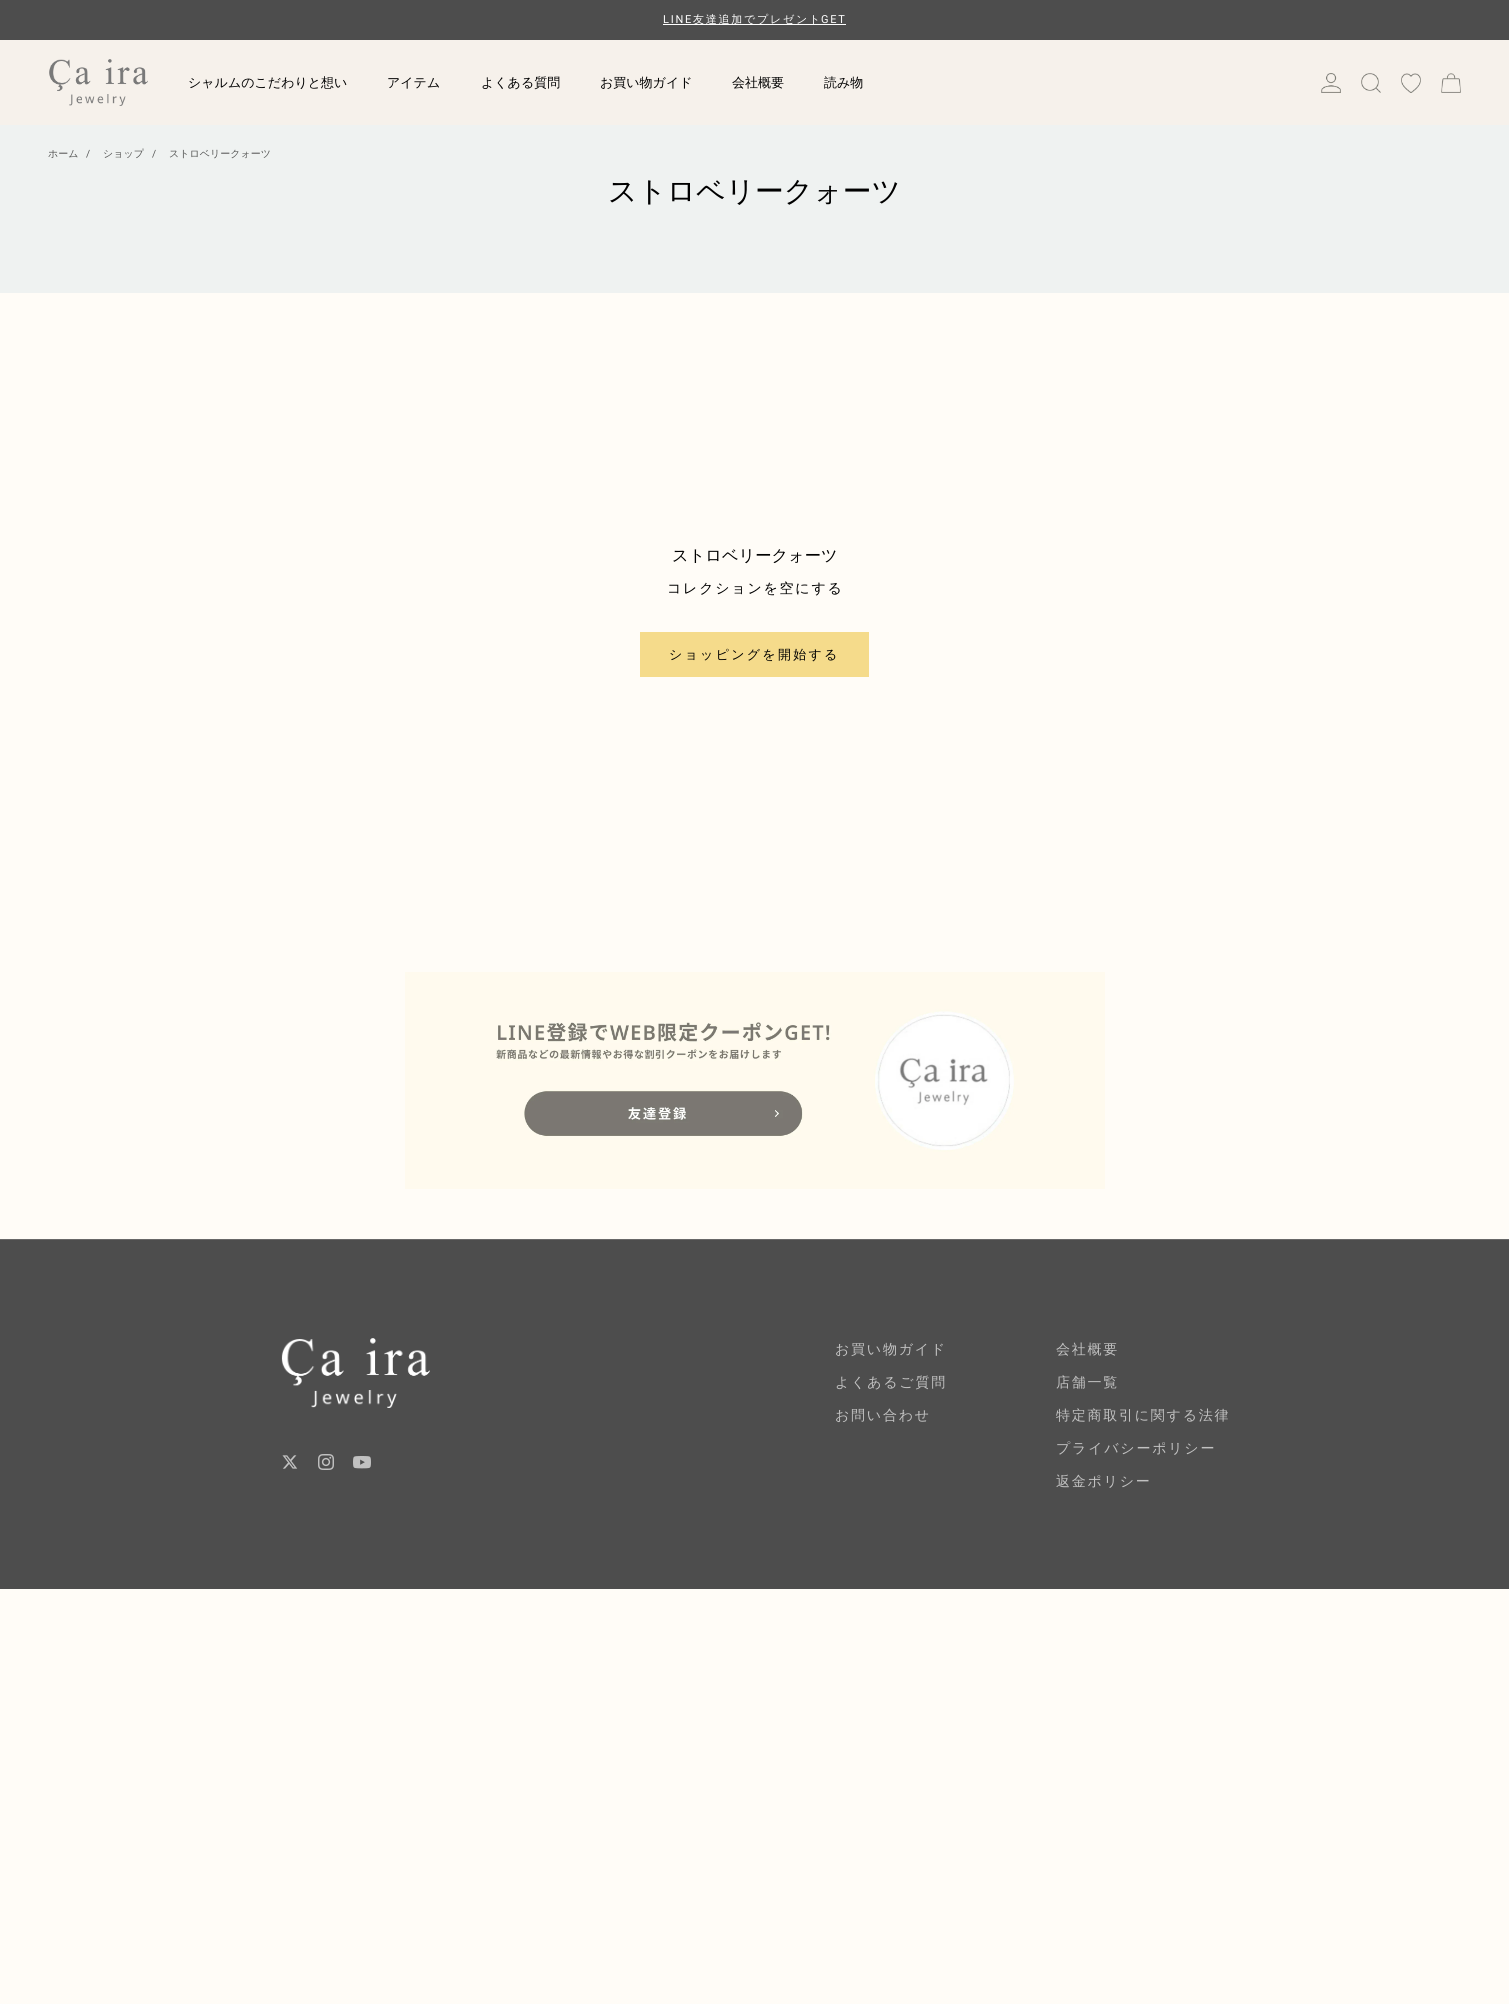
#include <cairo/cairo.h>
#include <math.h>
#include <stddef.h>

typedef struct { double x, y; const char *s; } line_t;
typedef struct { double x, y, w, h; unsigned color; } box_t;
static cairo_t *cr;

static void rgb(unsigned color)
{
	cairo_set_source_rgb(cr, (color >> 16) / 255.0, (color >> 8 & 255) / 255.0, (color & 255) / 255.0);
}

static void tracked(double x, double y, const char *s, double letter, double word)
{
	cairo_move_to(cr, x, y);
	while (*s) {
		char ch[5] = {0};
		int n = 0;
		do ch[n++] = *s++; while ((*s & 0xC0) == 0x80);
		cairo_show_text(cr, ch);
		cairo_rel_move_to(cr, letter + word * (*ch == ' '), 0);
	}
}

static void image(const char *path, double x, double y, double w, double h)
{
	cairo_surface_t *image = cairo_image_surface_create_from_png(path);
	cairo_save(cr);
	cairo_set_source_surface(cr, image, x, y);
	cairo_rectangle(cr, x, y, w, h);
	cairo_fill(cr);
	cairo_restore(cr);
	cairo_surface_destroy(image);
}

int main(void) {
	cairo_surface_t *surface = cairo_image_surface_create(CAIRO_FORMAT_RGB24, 1509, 2004);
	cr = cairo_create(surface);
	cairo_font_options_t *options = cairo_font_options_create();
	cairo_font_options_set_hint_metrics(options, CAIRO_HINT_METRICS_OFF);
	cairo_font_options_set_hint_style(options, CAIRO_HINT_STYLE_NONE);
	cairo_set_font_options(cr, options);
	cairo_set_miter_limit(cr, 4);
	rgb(0xfffcf7);
	cairo_paint(cr);
	{
		static const box_t items[] = {
			{0, 0, 1509, 40, 0x4d4d4d},
			{663, 24, 183, 1, 0xffffff},
			{0, 40, 1509, 85, 0xf6f1eb},
		};
		for (size_t i = 0; i < sizeof items / sizeof *items; i++) {
			rgb(items[i].color);
			cairo_rectangle(cr, items[i].x, items[i].y, items[i].w, items[i].h);
			cairo_fill(cr);
		}
	}
	image("img/1.png", 49, 59, 99, 47);
	image("img/2.png", 1321, 73, 20, 20);
	image("img/3.png", 1361, 73, 20, 20);
	image("img/4.png", 1401, 73, 20, 20);
	image("img/5.png", 1441, 73, 20, 20);
	rgb(0xeff2f1);
	cairo_rectangle(cr, 0, 125, 1509, 168);
	cairo_fill(cr);
	rgb(0xf5db8b);
	cairo_rectangle(cr, 640.5, 632.5, 228, 44);
	cairo_fill_preserve(cr);
	cairo_set_line_width(cr, 1);
	cairo_stroke(cr);
	image("img/6.png", 405, 972, 700, 217);
	rgb(0x4d4d4d);
	cairo_rectangle(cr, 0, 1240, 1509, 349);
	cairo_fill(cr);
	rgb(0x686868);
	cairo_rectangle(cr, 0, 1239, 1509, 1);
	cairo_fill(cr);
	image("img/7.png", 281, 1338, 149, 70);
	image("img/8.png", 282, 1455, 16, 14);
	image("img/9.png", 318, 1454, 16, 16);
	image("img/10.png", 353, 1456, 18, 13);
	cairo_select_font_face(cr, "Roboto", CAIRO_FONT_SLANT_NORMAL, CAIRO_FONT_WEIGHT_NORMAL);
	cairo_set_font_size(cr, 11);
	rgb(0xffffff);
	tracked(663, 23, "LINE", 1.75, 0);
	cairo_select_font_face(cr, "WenQuanYi Zen Hei Medium", CAIRO_FONT_SLANT_NORMAL, CAIRO_FONT_WEIGHT_NORMAL);
	tracked(693, 23, "友達追加でプレゼント", 1.75, 0);
	cairo_select_font_face(cr, "Roboto", CAIRO_FONT_SLANT_NORMAL, CAIRO_FONT_WEIGHT_NORMAL);
	tracked(821, 23, "GET", 1.75, 0);
	cairo_select_font_face(cr, "WenQuanYi Zen Hei Medium", CAIRO_FONT_SLANT_NORMAL, CAIRO_FONT_WEIGHT_NORMAL);
	cairo_set_font_size(cr, 13);
	rgb(0x000000);
	{
		static const line_t items[] = {
			{188, 87, "シャルムのこだわりと想い"},
			{387, 87, "アイテム"},
			{481, 87, "よくある質問"},
			{600, 87, "お買い物ガイド"},
			{732, 87, "会社概要"},
			{824, 87, "読み物"},
		};
		for (size_t i = 0; i < sizeof items / sizeof *items; i++) {
			cairo_move_to(cr, items[i].x, items[i].y);
			cairo_show_text(cr, items[i].s);
		}
	}
	cairo_set_font_size(cr, 10);
	rgb(0x545554);
	cairo_move_to(cr, 48, 157);
	cairo_show_text(cr, "ホーム");
	cairo_select_font_face(cr, "Roboto", CAIRO_FONT_SLANT_NORMAL, CAIRO_FONT_WEIGHT_NORMAL);
	tracked(86, 157, "/", 1.75, 0);
	cairo_select_font_face(cr, "WenQuanYi Zen Hei Medium", CAIRO_FONT_SLANT_NORMAL, CAIRO_FONT_WEIGHT_NORMAL);
	cairo_move_to(cr, 103, 157);
	cairo_show_text(cr, "ショップ");
	cairo_select_font_face(cr, "Roboto", CAIRO_FONT_SLANT_NORMAL, CAIRO_FONT_WEIGHT_NORMAL);
	tracked(152, 157, "/", 1.75, 0);
	cairo_select_font_face(cr, "WenQuanYi Zen Hei Medium", CAIRO_FONT_SLANT_NORMAL, CAIRO_FONT_WEIGHT_NORMAL);
	cairo_move_to(cr, 169, 157);
	cairo_show_text(cr, "ストロベリークォーツ");
	cairo_set_font_size(cr, 28.75);
	rgb(0x000000);
	cairo_move_to(cr, 608, 201);
	cairo_show_text(cr, "ストロベリークォーツ");
	cairo_set_font_size(cr, 16.25);
	cairo_move_to(cr, 672, 561);
	cairo_show_text(cr, "ストロベリークォーツ");
	cairo_set_font_size(cr, 14);
	tracked(667, 593, "コレクションを空にする", 1.75, 0);
	cairo_set_font_size(cr, 13);
	tracked(669, 659, "ショッピングを開始する", 2.25, 0);
	cairo_set_font_size(cr, 14);
	rgb(0xc1c1c1);
	{
		static const line_t items[] = {
			{835, 1354, "お買い物ガイド"},
			{835, 1387, "よくあるご質問"},
			{835, 1420, "お問い合わせ"},
			{1056, 1354, "会社概要"},
			{1056, 1387, "店舗一覧"},
			{1056, 1420, "特定商取引に関する法律"},
			{1056, 1453, "プライバシーポリシー"},
			{1056, 1486, "返金ポリシー"},
		};
		for (size_t i = 0; i < sizeof items / sizeof *items; i++) {
			tracked(items[i].x, items[i].y, items[i].s, 1.75, 0);
		}
	}
	cairo_surface_write_to_png(surface, "page.png");
	cairo_font_options_destroy(options);
	cairo_destroy(cr);
	cairo_surface_destroy(surface);
	return 0;
}
